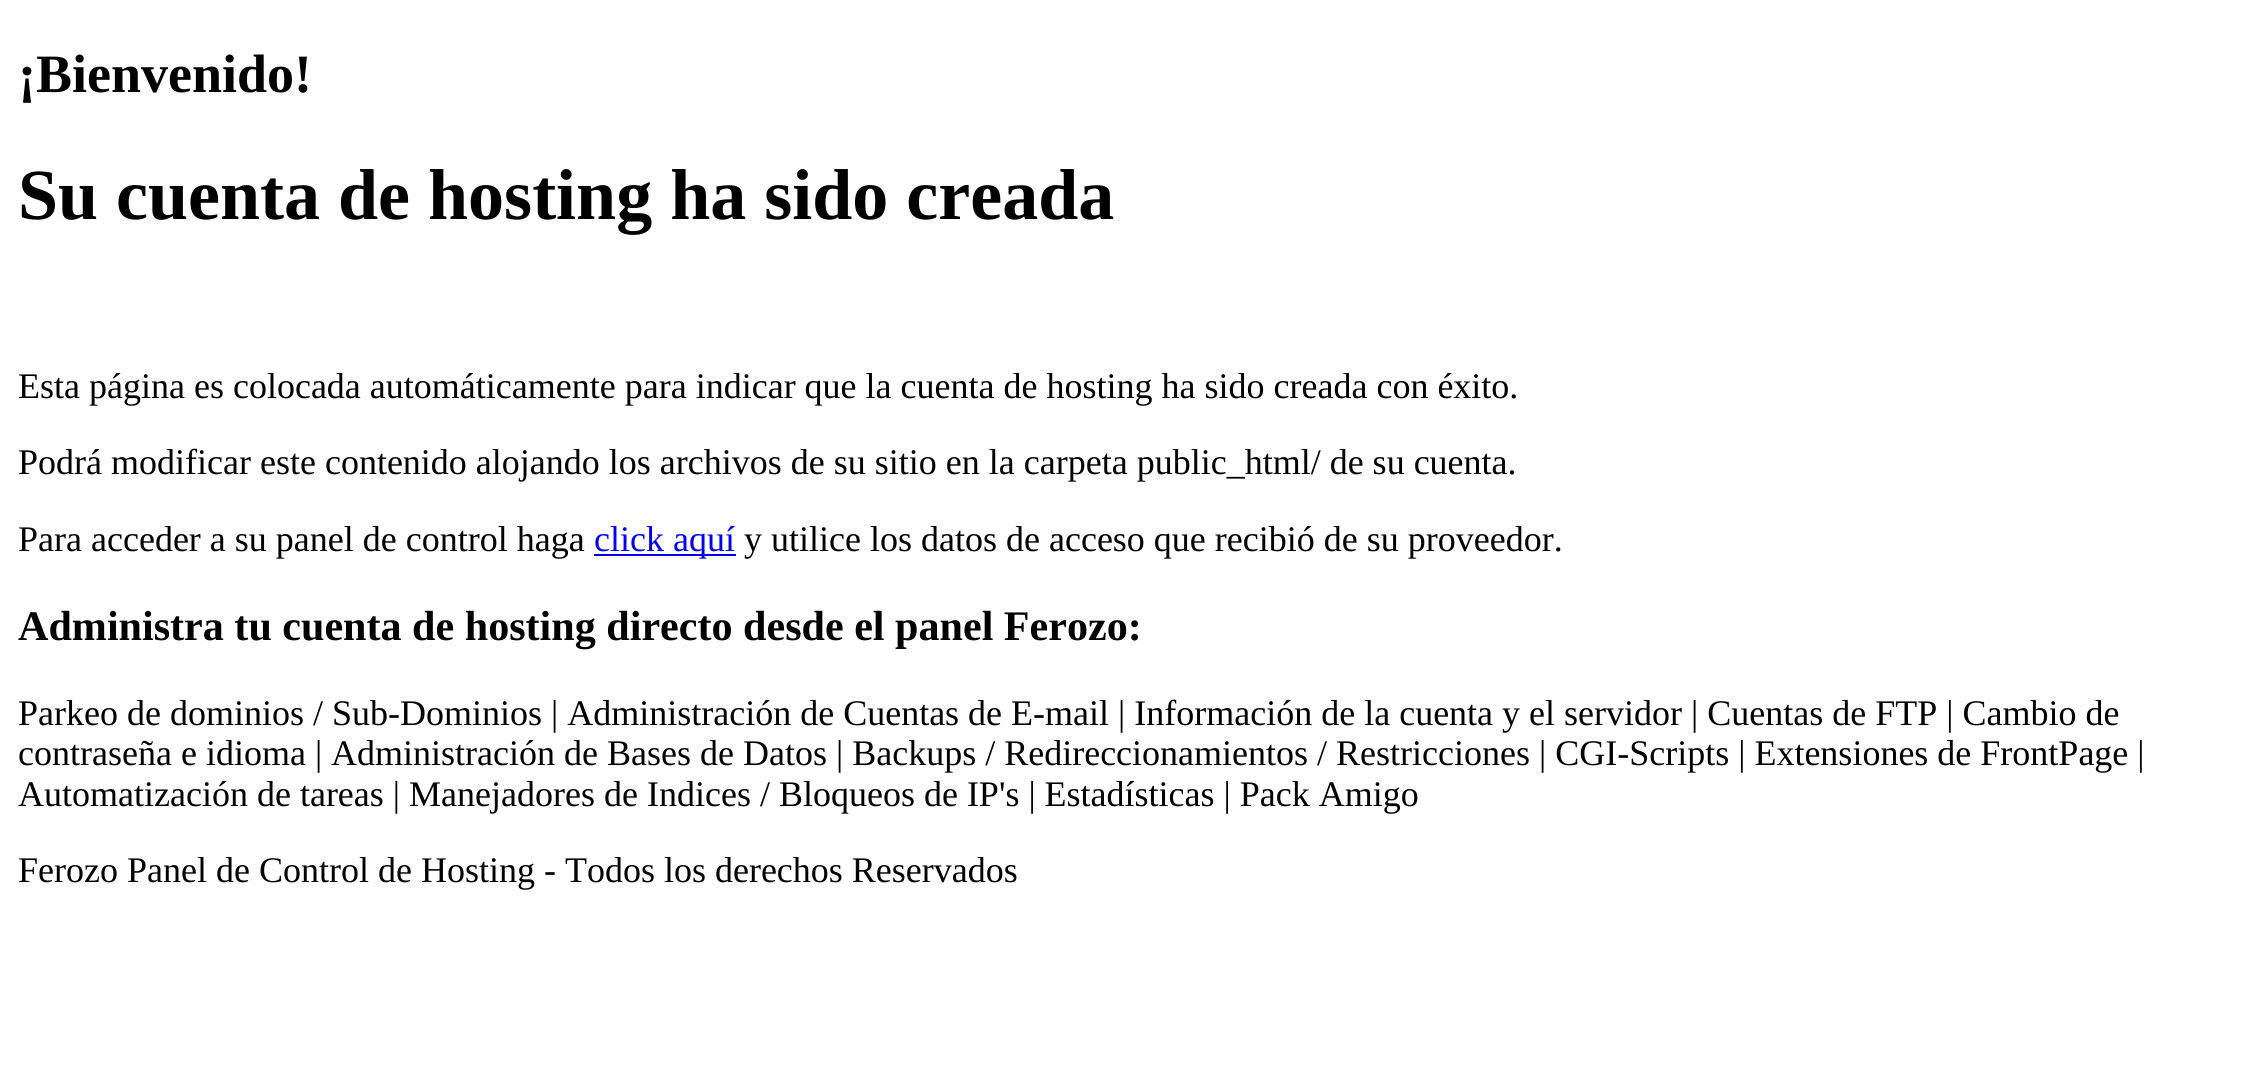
#include <cairo/cairo.h>
#include <math.h>
#include <stddef.h>

typedef struct { double x, y; const char *s; } line_t;
static cairo_t *cr;

static void rgb(unsigned color)
{
	cairo_set_source_rgb(cr, (color >> 16) / 255.0, (color >> 8 & 255) / 255.0, (color & 255) / 255.0);
}

int main(void) {
	cairo_surface_t *surface = cairo_image_surface_create(CAIRO_FORMAT_RGB24, 2257, 1074);
	cr = cairo_create(surface);
	cairo_font_options_t *options = cairo_font_options_create();
	cairo_font_options_set_hint_metrics(options, CAIRO_HINT_METRICS_OFF);
	cairo_font_options_set_hint_style(options, CAIRO_HINT_STYLE_NONE);
	cairo_set_font_options(cr, options);
	cairo_set_miter_limit(cr, 4);
	rgb(0xffffff);
	cairo_paint(cr);
	rgb(0x0000ee);
	cairo_rectangle(cr, 594, 554, 142, 2);
	cairo_fill(cr);
	cairo_select_font_face(cr, "Liberation Serif", CAIRO_FONT_SLANT_NORMAL, CAIRO_FONT_WEIGHT_BOLD);
	cairo_set_font_size(cr, 54);
	rgb(0x000000);
	cairo_move_to(cr, 18, 92);
	cairo_show_text(cr, "¡Bienvenido!");
	cairo_set_font_size(cr, 72);
	cairo_move_to(cr, 18, 219);
	cairo_show_text(cr, "Su cuenta de hosting ha sido creada");
	cairo_select_font_face(cr, "Liberation Serif", CAIRO_FONT_SLANT_NORMAL, CAIRO_FONT_WEIGHT_NORMAL);
	cairo_set_font_size(cr, 36);
	{
		static const line_t items[] = {
			{18, 398, "Esta página es colocada automáticamente para indicar que la cuenta de hosting ha sido creada con éxito."},
			{18, 474, "Podrá modificar este contenido alojando los archivos de su sitio en la carpeta public_html/ de su cuenta."},
			{18, 551, "Para acceder a su panel de control haga"},
		};
		for (size_t i = 0; i < sizeof items / sizeof *items; i++) {
			cairo_move_to(cr, items[i].x, items[i].y);
			cairo_show_text(cr, items[i].s);
		}
	}
	rgb(0x0000ee);
	cairo_move_to(cr, 594, 551);
	cairo_show_text(cr, "click aquí");
	rgb(0x000000);
	cairo_move_to(cr, 744, 551);
	cairo_show_text(cr, "y utilice los datos de acceso que recibió de su proveedor.");
	cairo_select_font_face(cr, "Liberation Serif", CAIRO_FONT_SLANT_NORMAL, CAIRO_FONT_WEIGHT_BOLD);
	cairo_set_font_size(cr, 42.1);
	cairo_move_to(cr, 18, 640);
	cairo_show_text(cr, "Administra tu cuenta de hosting directo desde el panel Ferozo:");
	cairo_select_font_face(cr, "Liberation Serif", CAIRO_FONT_SLANT_NORMAL, CAIRO_FONT_WEIGHT_NORMAL);
	cairo_set_font_size(cr, 36);
	{
		static const line_t items[] = {
			{18, 725, "Parkeo de dominios / Sub-Dominios | Administración de Cuentas de E-mail | Información de la cuenta y el servidor | Cuentas de FTP | Cambio de"},
			{18, 765, "contraseña e idioma | Administración de Bases de Datos | Backups / Redireccionamientos / Restricciones | CGI-Scripts | Extensiones de FrontPage |"},
			{18, 806, "Automatización de tareas | Manejadores de Indices / Bloqueos de IP's | Estadísticas | Pack Amigo"},
			{18, 882, "Ferozo Panel de Control de Hosting - Todos los derechos Reservados"},
		};
		for (size_t i = 0; i < sizeof items / sizeof *items; i++) {
			cairo_move_to(cr, items[i].x, items[i].y);
			cairo_show_text(cr, items[i].s);
		}
	}
	cairo_surface_write_to_png(surface, "page.png");
	cairo_font_options_destroy(options);
	cairo_destroy(cr);
	cairo_surface_destroy(surface);
	return 0;
}
